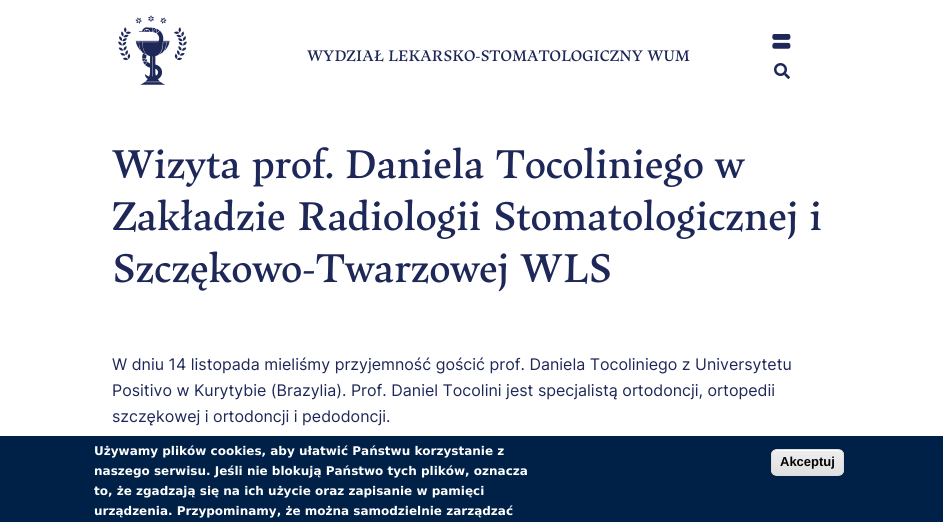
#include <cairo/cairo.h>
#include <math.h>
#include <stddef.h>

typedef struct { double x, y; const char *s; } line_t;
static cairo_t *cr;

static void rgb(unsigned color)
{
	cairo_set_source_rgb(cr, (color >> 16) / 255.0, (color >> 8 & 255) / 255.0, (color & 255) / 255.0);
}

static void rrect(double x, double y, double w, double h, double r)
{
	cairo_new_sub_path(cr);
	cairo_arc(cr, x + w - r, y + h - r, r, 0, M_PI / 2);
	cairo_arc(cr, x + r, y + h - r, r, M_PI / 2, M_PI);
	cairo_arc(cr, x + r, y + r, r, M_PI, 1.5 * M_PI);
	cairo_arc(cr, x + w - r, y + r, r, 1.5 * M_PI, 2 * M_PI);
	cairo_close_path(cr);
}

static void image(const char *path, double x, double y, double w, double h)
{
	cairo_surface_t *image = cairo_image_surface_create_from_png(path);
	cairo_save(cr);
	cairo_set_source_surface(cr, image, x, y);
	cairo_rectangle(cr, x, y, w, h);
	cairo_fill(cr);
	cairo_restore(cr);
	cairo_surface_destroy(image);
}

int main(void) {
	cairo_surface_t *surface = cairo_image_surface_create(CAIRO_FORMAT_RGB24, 943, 522);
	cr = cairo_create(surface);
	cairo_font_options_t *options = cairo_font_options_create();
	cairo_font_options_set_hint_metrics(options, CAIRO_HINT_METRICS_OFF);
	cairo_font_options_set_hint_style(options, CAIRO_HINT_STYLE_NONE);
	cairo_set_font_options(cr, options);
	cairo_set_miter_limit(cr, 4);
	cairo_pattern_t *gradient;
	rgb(0xffffff);
	cairo_paint(cr);
	image("img/1.png", 118, 15, 69, 70);
	image("img/2.png", 772, 34, 19, 15);
	image("img/3.png", 774, 63, 16, 16);
	rgb(0x002147);
	cairo_rectangle(cr, 0, 436, 943, 86);
	cairo_fill(cr);
	cairo_save(cr);
	rrect(771, 449, 73, 27, 6);
	cairo_clip(cr);
	gradient = cairo_pattern_create_linear(808, 450, 808, 475);
	cairo_pattern_add_color_stop_rgba(gradient, 0.05, 0.929, 0.929, 0.929, 1);
	cairo_pattern_add_color_stop_rgba(gradient, 1, 0.875, 0.875, 0.875, 1);
	cairo_set_source(cr, gradient);
	cairo_pattern_destroy(gradient);
	cairo_rectangle(cr, 771, 450, 73, 25);
	cairo_fill(cr);
	cairo_restore(cr);
	rgb(0xffffff);
	cairo_new_path(cr);
	cairo_move_to(cr, 777, 451);
	cairo_line_to(cr, 838, 451);
	cairo_curve_to(cr, 841, 451, 843, 453, 843, 456);
	cairo_curve_to(cr, 843, 448, 834, 450, 828, 450);
	cairo_line_to(cr, 787, 450);
	cairo_curve_to(cr, 781, 450, 772, 448, 772, 456);
	cairo_curve_to(cr, 772, 453, 774, 451, 777, 451);
	cairo_close_path(cr);
	cairo_fill(cr);
	rrect(771.5, 449.5, 72, 26, 5.5);
	rgb(0xdcdcdc);
	cairo_set_line_width(cr, 1);
	cairo_stroke(cr);
	cairo_select_font_face(cr, "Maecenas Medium", CAIRO_FONT_SLANT_NORMAL, CAIRO_FONT_WEIGHT_NORMAL);
	cairo_set_font_size(cr, 16);
	rgb(0x1d2758);
	cairo_move_to(cr, 307, 61);
	cairo_show_text(cr, "WYDZIAŁ LEKARSKO-STOMATOLOGICZNY WUM");
	cairo_set_font_size(cr, 42);
	{
		static const line_t items[] = {
			{112, 178, "Wizyta prof. Daniela Tocoliniego w"},
			{112, 230, "Zakładzie Radiologii Stomatologicznej i"},
			{112, 282, "Szczękowo-Twarzowej WLS"},
		};
		for (size_t i = 0; i < sizeof items / sizeof *items; i++) {
			cairo_move_to(cr, items[i].x, items[i].y);
			cairo_show_text(cr, items[i].s);
		}
	}
	cairo_select_font_face(cr, "Inter", CAIRO_FONT_SLANT_NORMAL, CAIRO_FONT_WEIGHT_NORMAL);
	cairo_set_font_size(cr, 16);
	{
		static const line_t items[] = {
			{112, 370, "W dniu 14 listopada mieliśmy przyjemność gościć prof. Daniela Tocoliniego z Universytetu"},
			{112, 396, "Positivo w Kurytybie (Brazylia). Prof. Daniel Tocolini jest specjalistą ortodoncji, ortopedii"},
			{112, 422, "szczękowej i ortodoncji i pedodoncji."},
		};
		for (size_t i = 0; i < sizeof items / sizeof *items; i++) {
			cairo_move_to(cr, items[i].x, items[i].y);
			cairo_show_text(cr, items[i].s);
		}
	}
	cairo_select_font_face(cr, "DejaVu Sans", CAIRO_FONT_SLANT_NORMAL, CAIRO_FONT_WEIGHT_BOLD);
	cairo_set_font_size(cr, 12);
	rgb(0xffffff);
	{
		static const line_t items[] = {
			{94, 455, "Używamy plików cookies, aby ułatwić Państwu korzystanie z"},
			{94, 475, "naszego serwisu. Jeśli nie blokują Państwo tych plików, oznacza"},
			{94, 495, "to, że zgadzają się na ich użycie oraz zapisanie w pamięci"},
			{94, 515, "urządzenia. Przypominamy, że można samodzielnie zarządzać"},
		};
		for (size_t i = 0; i < sizeof items / sizeof *items; i++) {
			cairo_move_to(cr, items[i].x, items[i].y);
			cairo_show_text(cr, items[i].s);
		}
	}
	cairo_select_font_face(cr, "Liberation Sans", CAIRO_FONT_SLANT_NORMAL, CAIRO_FONT_WEIGHT_BOLD);
	cairo_set_font_size(cr, 13);
	rgb(0x000000);
	cairo_move_to(cr, 780, 466);
	cairo_show_text(cr, "Akceptuj");
	cairo_surface_write_to_png(surface, "page.png");
	cairo_font_options_destroy(options);
	cairo_destroy(cr);
	cairo_surface_destroy(surface);
	return 0;
}
